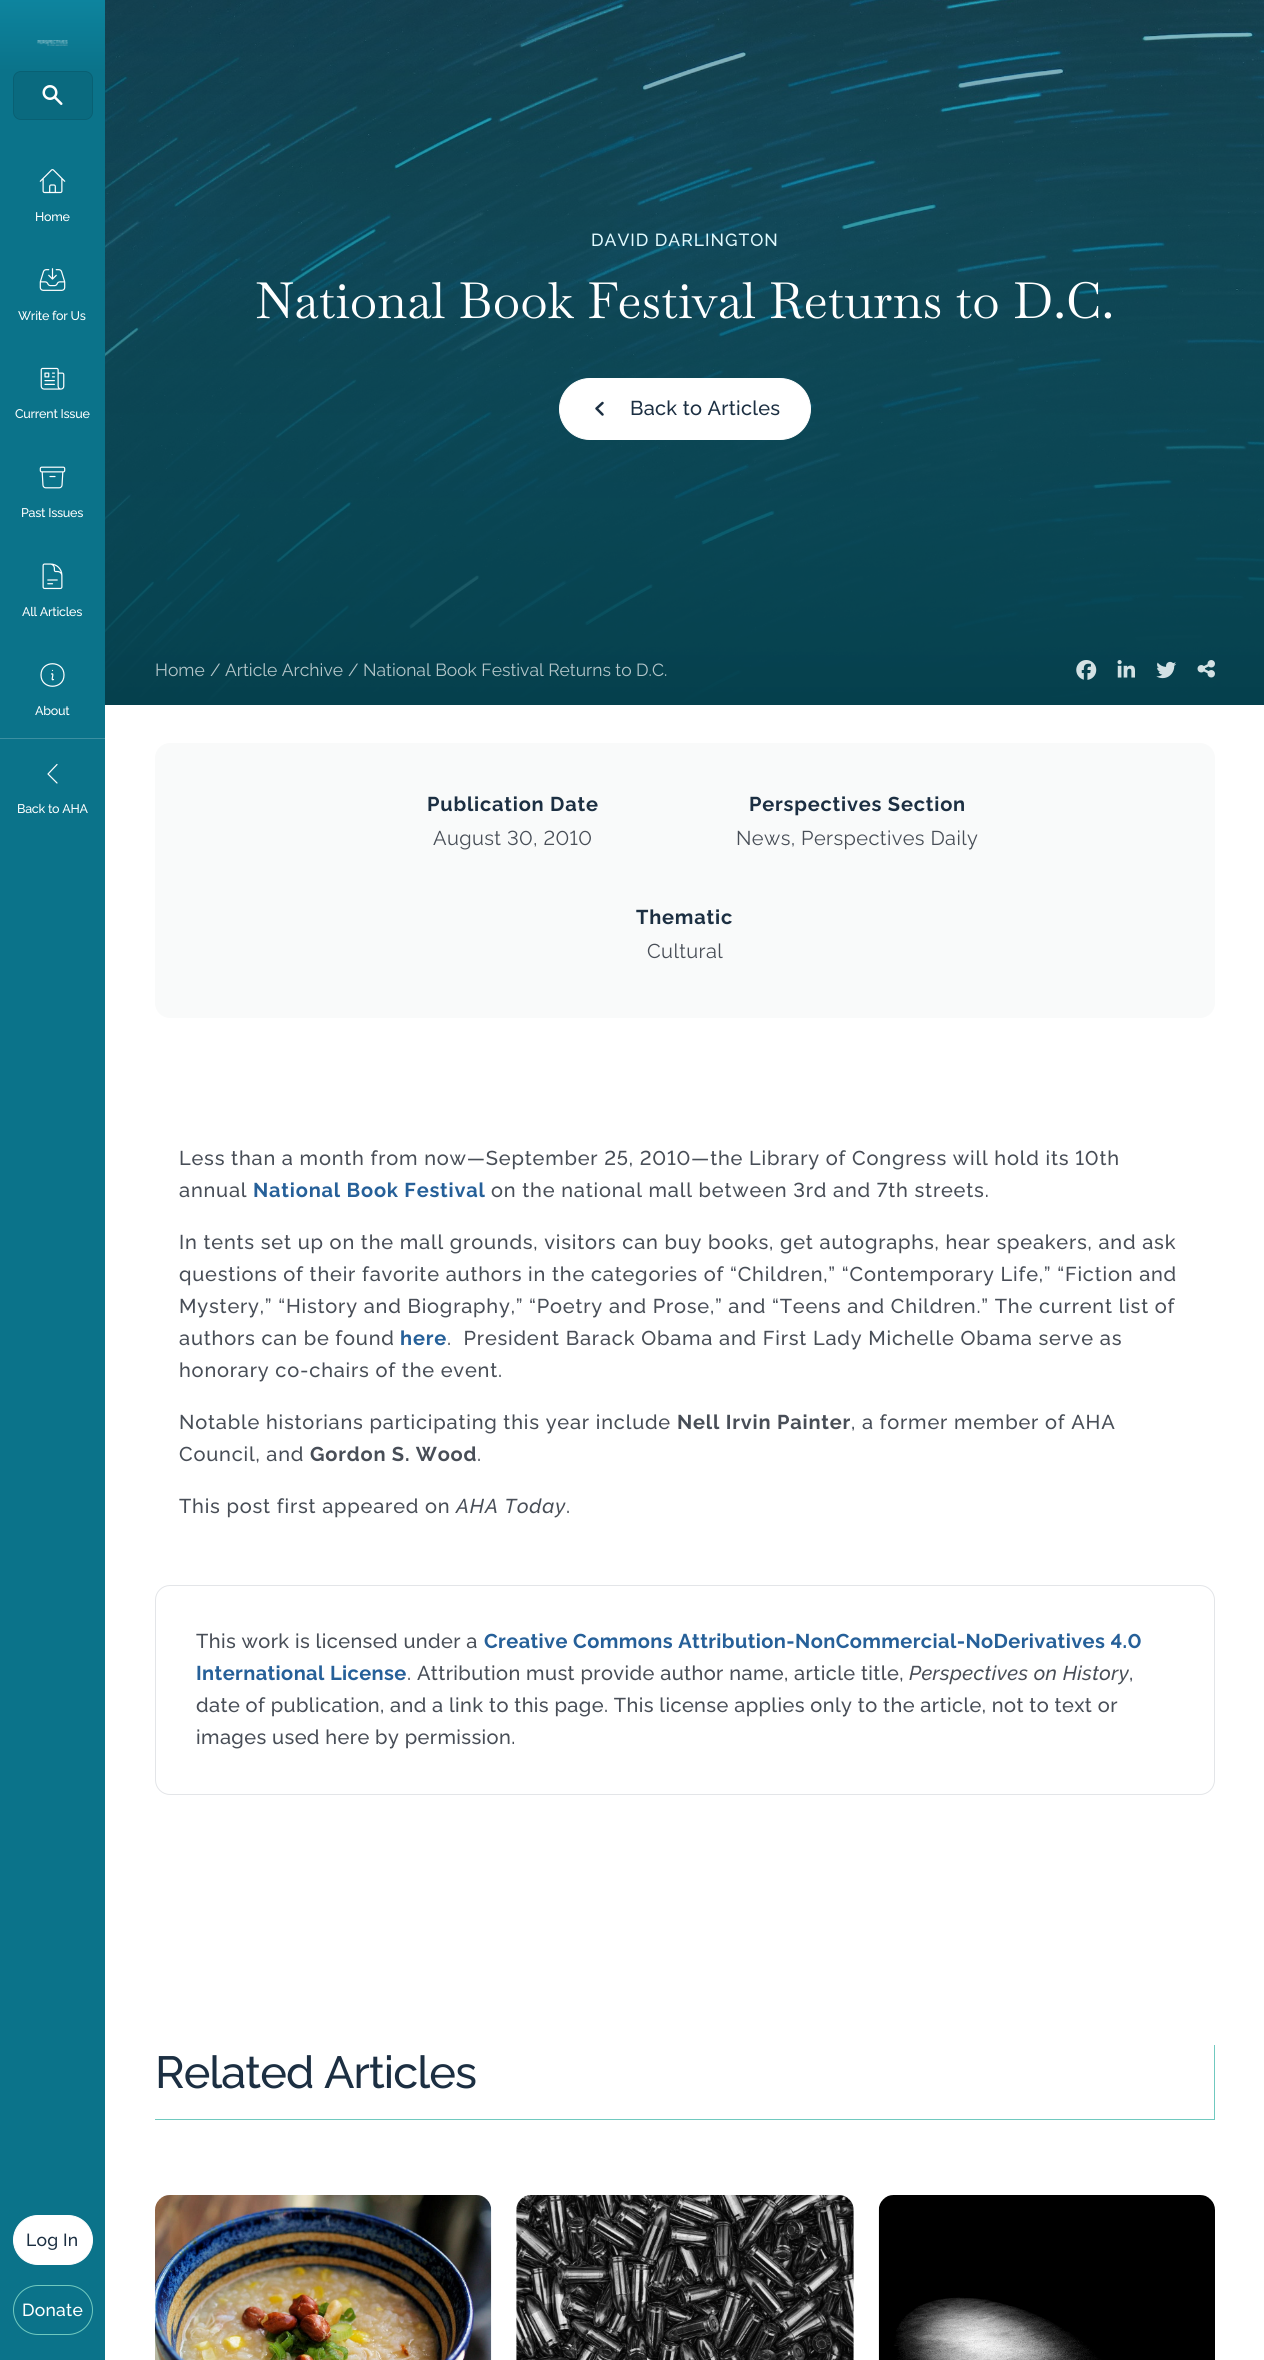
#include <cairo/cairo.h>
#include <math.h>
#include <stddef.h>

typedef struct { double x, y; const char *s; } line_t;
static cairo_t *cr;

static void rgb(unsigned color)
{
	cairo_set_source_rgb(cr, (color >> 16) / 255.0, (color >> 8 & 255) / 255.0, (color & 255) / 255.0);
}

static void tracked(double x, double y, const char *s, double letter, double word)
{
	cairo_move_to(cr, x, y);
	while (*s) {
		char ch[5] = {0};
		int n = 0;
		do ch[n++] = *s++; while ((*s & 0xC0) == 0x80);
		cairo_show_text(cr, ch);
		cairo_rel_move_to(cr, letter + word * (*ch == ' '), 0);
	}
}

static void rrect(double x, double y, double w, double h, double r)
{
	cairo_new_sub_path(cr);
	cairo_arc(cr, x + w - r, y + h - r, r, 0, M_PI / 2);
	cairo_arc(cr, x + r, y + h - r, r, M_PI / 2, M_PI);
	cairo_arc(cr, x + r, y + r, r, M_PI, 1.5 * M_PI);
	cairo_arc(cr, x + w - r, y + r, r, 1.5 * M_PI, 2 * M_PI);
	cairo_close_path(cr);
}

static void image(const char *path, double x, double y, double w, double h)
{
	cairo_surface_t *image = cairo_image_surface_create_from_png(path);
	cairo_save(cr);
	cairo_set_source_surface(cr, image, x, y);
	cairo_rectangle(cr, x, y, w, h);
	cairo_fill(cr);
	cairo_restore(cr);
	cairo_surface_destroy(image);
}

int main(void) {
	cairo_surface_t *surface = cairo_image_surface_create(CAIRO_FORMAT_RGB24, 1264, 2360);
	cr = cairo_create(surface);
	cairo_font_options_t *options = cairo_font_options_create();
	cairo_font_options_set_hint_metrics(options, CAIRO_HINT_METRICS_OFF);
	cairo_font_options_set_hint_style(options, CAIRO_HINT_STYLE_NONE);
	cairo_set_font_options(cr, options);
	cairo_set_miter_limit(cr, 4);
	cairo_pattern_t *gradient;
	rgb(0xffffff);
	cairo_paint(cr);
	gradient = cairo_pattern_create_linear(52, 0, 53, 2360);
	cairo_pattern_add_color_stop_rgba(gradient, 0, 0.051, 0.518, 0.62, 1);
	cairo_pattern_add_color_stop_rgba(gradient, 0.03, 0.043, 0.451, 0.541, 1);
	cairo_set_source(cr, gradient);
	cairo_pattern_destroy(gradient);
	cairo_rectangle(cr, 0, 0, 105, 2360);
	cairo_fill(cr);
	image("img/1.png", 37, 40, 31, 6);
	rgb(0x0a6a7f);
	rrect(13, 71, 80, 49, 8);
	cairo_fill(cr);
	image("img/2.png", 42, 85, 21, 20);
	rrect(13.5, 71.5, 79, 48, 7.5);
	cairo_set_source_rgba(cr, 0, 0, 0, 0.1);
	cairo_set_line_width(cr, 1);
	cairo_stroke(cr);
	image("img/3.png", 39, 169, 27, 25);
	image("img/4.png", 39, 268, 27, 23);
	image("img/5.png", 40, 367, 25, 23);
	image("img/6.png", 39, 466, 27, 23);
	image("img/7.png", 42, 563, 21, 27);
	cairo_new_path(cr);
	cairo_move_to(cr, 51.5, 674);
	cairo_curve_to(cr, 55, 672.5, 50, 681.5, 53.5, 679.5);
	cairo_move_to(cr, 64, 675);
	cairo_curve_to(cr, 64, 690, 41, 690, 41, 675);
	cairo_curve_to(cr, 41, 660, 64, 660, 64, 675);
	cairo_close_path(cr);
	cairo_move_to(cr, 52.5, 670.5);
	cairo_line_to(cr, 52.5, 670.5);
	cairo_close_path(cr);
	rgb(0xffffff);
	cairo_set_line_width(cr, 1.2);
	cairo_set_line_cap(cr, CAIRO_LINE_CAP_ROUND);
	cairo_set_line_join(cr, CAIRO_LINE_JOIN_ROUND);
	cairo_stroke(cr);
	rgb(0x3c8fa1);
	cairo_rectangle(cr, 0, 738, 105, 1);
	cairo_fill(cr);
	cairo_new_path(cr);
	cairo_move_to(cr, 57, 783);
	cairo_line_to(cr, 48, 774);
	cairo_line_to(cr, 57, 764.5);
	rgb(0xffffff);
	cairo_stroke(cr);
	rrect(13.5, 2215.5, 79, 49, 24.5);
	cairo_fill_preserve(cr);
	cairo_set_line_width(cr, 1);
	cairo_set_line_cap(cr, CAIRO_LINE_CAP_BUTT);
	cairo_set_line_join(cr, CAIRO_LINE_JOIN_MITER);
	cairo_stroke(cr);
	rrect(13.5, 2285.5, 79, 49, 24.5);
	rgb(0x70c9bf);
	cairo_stroke(cr);
	image("img/8.png", 105, 0, 1159, 705);
	rgb(0xffffff);
	rrect(559.5, 378.5, 251, 61, 30.5);
	cairo_fill_preserve(cr);
	cairo_stroke(cr);
	cairo_new_path(cr);
	cairo_move_to(cr, 602.5, 403);
	cairo_line_to(cr, 596.5, 408.5);
	cairo_line_to(cr, 602.5, 414.5);
	rgb(0x1c2f42);
	cairo_set_line_width(cr, 2.5);
	cairo_set_line_cap(cr, CAIRO_LINE_CAP_ROUND);
	cairo_set_line_join(cr, CAIRO_LINE_JOIN_ROUND);
	cairo_stroke(cr);
	image("img/9.png", 1076, 660, 21, 20);
	image("img/10.png", 1117, 660, 18, 18);
	image("img/11.png", 1156, 661, 21, 18);
	image("img/12.png", 1197, 660, 18, 18);
	rgb(0xf9fafa);
	rrect(155, 743, 1060, 275, 15);
	cairo_fill(cr);
	rrect(155.5, 1585.5, 1059, 209, 14.5);
	rgb(0xe3e5e8);
	cairo_set_line_width(cr, 1);
	cairo_set_line_cap(cr, CAIRO_LINE_CAP_BUTT);
	cairo_set_line_join(cr, CAIRO_LINE_JOIN_MITER);
	cairo_stroke(cr);
	rgb(0x70c9bf);
	cairo_rectangle(cr, 1214, 2045, 1, 75);
	cairo_fill(cr);
	cairo_rectangle(cr, 155, 2119, 1060, 1);
	cairo_fill(cr);
	image("img/13.png", 155, 2195, 337, 165);
	image("img/14.png", 516, 2195, 338, 165);
	image("img/15.png", 878, 2195, 337, 165);
	cairo_select_font_face(cr, "Raleway Medium", CAIRO_FONT_SLANT_NORMAL, CAIRO_FONT_WEIGHT_NORMAL);
	cairo_set_font_size(cr, 12.5);
	rgb(0xffffff);
	{
		static const line_t items[] = {
			{35, 221, "Home"},
			{18, 320, "Write for Us"},
			{15, 418, "Current Issue"},
			{21, 517, "Past Issues"},
			{22, 616, "All Articles"},
			{35, 715, "About"},
			{17, 813, "Back to AHA"},
		};
		for (size_t i = 0; i < sizeof items / sizeof *items; i++) {
			tracked(items[i].x, items[i].y, items[i].s, -0.25, 0);
		}
	}
	cairo_set_font_size(cr, 17.5);
	rgb(0x1c2f42);
	tracked(26, 2246, "Log In", 0.25, 0);
	rgb(0xffffff);
	tracked(22, 2316, "Donate", 0.25, 0);
	rgb(0xe1faff);
	tracked(591, 246, "DAVID DARLINGTON", 1, 0);
	cairo_select_font_face(cr, "Baskervville", CAIRO_FONT_SLANT_NORMAL, CAIRO_FONT_WEIGHT_NORMAL);
	cairo_set_font_size(cr, 50);
	rgb(0xffffff);
	cairo_move_to(cr, 255, 318);
	cairo_show_text(cr, "National Book Festival Returns to D.C.");
	cairo_select_font_face(cr, "Raleway Medium", CAIRO_FONT_SLANT_NORMAL, CAIRO_FONT_WEIGHT_NORMAL);
	cairo_set_font_size(cr, 20);
	rgb(0x1c2f42);
	tracked(630, 415, "Back to Articles", 0.25, 0);
	cairo_select_font_face(cr, "Raleway", CAIRO_FONT_SLANT_NORMAL, CAIRO_FONT_WEIGHT_NORMAL);
	cairo_set_font_size(cr, 17.5);
	rgb(0xb4c6ca);
	{
		static const line_t items[] = {
			{155, 676, "Home"},
			{210, 676, "/ Article Archive"},
			{348, 676, "/ National Book Festival Returns to D.C."},
		};
		for (size_t i = 0; i < sizeof items / sizeof *items; i++) {
			cairo_move_to(cr, items[i].x, items[i].y);
			cairo_show_text(cr, items[i].s);
		}
	}
	cairo_select_font_face(cr, "Raleway", CAIRO_FONT_SLANT_NORMAL, CAIRO_FONT_WEIGHT_BOLD);
	cairo_set_font_size(cr, 20);
	rgb(0x1c2f42);
	tracked(427, 811, "Publication Date", 0.8, 0);
	cairo_select_font_face(cr, "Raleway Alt", CAIRO_FONT_SLANT_NORMAL, CAIRO_FONT_WEIGHT_NORMAL);
	rgb(0x484e57);
	tracked(433, 845, "August 30, 2010", 0.4, 0);
	cairo_select_font_face(cr, "Raleway", CAIRO_FONT_SLANT_NORMAL, CAIRO_FONT_WEIGHT_BOLD);
	rgb(0x1c2f42);
	tracked(749, 811, "Perspectives Section", 0.8, 0);
	cairo_select_font_face(cr, "Raleway", CAIRO_FONT_SLANT_NORMAL, CAIRO_FONT_WEIGHT_NORMAL);
	rgb(0x484e57);
	tracked(736, 845, "News, Perspectives Daily", 0.4, 0);
	cairo_select_font_face(cr, "Raleway", CAIRO_FONT_SLANT_NORMAL, CAIRO_FONT_WEIGHT_BOLD);
	rgb(0x1c2f42);
	tracked(636, 924, "Thematic", 0.8, 0);
	cairo_select_font_face(cr, "Raleway", CAIRO_FONT_SLANT_NORMAL, CAIRO_FONT_WEIGHT_NORMAL);
	rgb(0x484e57);
	tracked(647, 958, "Cultural", 0.4, 0);
	cairo_select_font_face(cr, "Raleway Alt Medium", CAIRO_FONT_SLANT_NORMAL, CAIRO_FONT_WEIGHT_NORMAL);
	tracked(179, 1165, "Less than a month from now—September 25, 2010—the Library of Congress will hold its 10th", 0.8, 0);
	cairo_select_font_face(cr, "Raleway Medium", CAIRO_FONT_SLANT_NORMAL, CAIRO_FONT_WEIGHT_NORMAL);
	tracked(179, 1197, "annual", 0.8, 0);
	cairo_select_font_face(cr, "Raleway", CAIRO_FONT_SLANT_NORMAL, CAIRO_FONT_WEIGHT_BOLD);
	rgb(0x266099);
	tracked(253, 1197, "National Book Festival", 0.8, 0);
	cairo_select_font_face(cr, "Raleway Alt Medium", CAIRO_FONT_SLANT_NORMAL, CAIRO_FONT_WEIGHT_NORMAL);
	rgb(0x484e57);
	tracked(491, 1197, "on the national mall between 3rd and 7th streets.", 0.8, 0);
	cairo_select_font_face(cr, "Raleway Medium", CAIRO_FONT_SLANT_NORMAL, CAIRO_FONT_WEIGHT_NORMAL);
	{
		static const line_t items[] = {
			{179, 1249, "In tents set up on the mall grounds, visitors can buy books, get autographs, hear speakers, and ask"},
			{179, 1281, "questions of their favorite authors in the categories of “Children,” “Contemporary Life,” “Fiction and"},
			{179, 1313, "Mystery,” “History and Biography,” “Poetry and Prose,” and “Teens and Children.” The current list of"},
			{179, 1345, "authors can be found"},
		};
		for (size_t i = 0; i < sizeof items / sizeof *items; i++) {
			tracked(items[i].x, items[i].y, items[i].s, 0.8, 0);
		}
	}
	cairo_select_font_face(cr, "Raleway", CAIRO_FONT_SLANT_NORMAL, CAIRO_FONT_WEIGHT_BOLD);
	rgb(0x266099);
	tracked(400, 1345, "here", 0.8, 0);
	cairo_select_font_face(cr, "Raleway Medium", CAIRO_FONT_SLANT_NORMAL, CAIRO_FONT_WEIGHT_NORMAL);
	rgb(0x484e57);
	{
		static const line_t items[] = {
			{447, 1345, ".  President Barack Obama and First Lady Michelle Obama serve as"},
			{179, 1377, "honorary co-chairs of the event."},
			{179, 1429, "Notable historians participating this year include"},
		};
		for (size_t i = 0; i < sizeof items / sizeof *items; i++) {
			tracked(items[i].x, items[i].y, items[i].s, 0.8, 0);
		}
	}
	cairo_select_font_face(cr, "Raleway", CAIRO_FONT_SLANT_NORMAL, CAIRO_FONT_WEIGHT_BOLD);
	tracked(677, 1429, "Nell Irvin Painter", 0.8, 0);
	cairo_select_font_face(cr, "Raleway Medium", CAIRO_FONT_SLANT_NORMAL, CAIRO_FONT_WEIGHT_NORMAL);
	tracked(851, 1429, ", a former member of AHA", 0.8, 0);
	tracked(179, 1461, "Council, and", 0.8, 0);
	cairo_select_font_face(cr, "Raleway", CAIRO_FONT_SLANT_NORMAL, CAIRO_FONT_WEIGHT_BOLD);
	tracked(310, 1461, "Gordon S. Wood", 0.8, 0);
	cairo_select_font_face(cr, "Raleway Medium", CAIRO_FONT_SLANT_NORMAL, CAIRO_FONT_WEIGHT_NORMAL);
	tracked(477, 1461, ".", 0.8, 0);
	tracked(179, 1513, "This post first appeared on", 0.8, 0);
	cairo_select_font_face(cr, "Raleway Medium", CAIRO_FONT_SLANT_ITALIC, CAIRO_FONT_WEIGHT_NORMAL);
	tracked(456, 1513, "AHA Today", 0.8, 0);
	cairo_select_font_face(cr, "Raleway Medium", CAIRO_FONT_SLANT_NORMAL, CAIRO_FONT_WEIGHT_NORMAL);
	tracked(566, 1513, ".", 0.8, 0);
	tracked(196, 1648, "This work is licensed under a", 0.4, 0);
	cairo_select_font_face(cr, "Raleway Alt", CAIRO_FONT_SLANT_NORMAL, CAIRO_FONT_WEIGHT_BOLD);
	rgb(0x266099);
	tracked(484, 1648, "Creative Commons Attribution-NonCommercial-NoDerivatives 4.0", 0.4, 0);
	cairo_select_font_face(cr, "Raleway", CAIRO_FONT_SLANT_NORMAL, CAIRO_FONT_WEIGHT_BOLD);
	tracked(196, 1680, "International License", 0.4, 0);
	cairo_select_font_face(cr, "Raleway Medium", CAIRO_FONT_SLANT_NORMAL, CAIRO_FONT_WEIGHT_NORMAL);
	rgb(0x484e57);
	tracked(407, 1680, ". Attribution must provide author name, article title,", 0.4, 0);
	cairo_select_font_face(cr, "Raleway Medium", CAIRO_FONT_SLANT_ITALIC, CAIRO_FONT_WEIGHT_NORMAL);
	tracked(909, 1680, "Perspectives on History", 0.4, 0);
	cairo_select_font_face(cr, "Raleway Medium", CAIRO_FONT_SLANT_NORMAL, CAIRO_FONT_WEIGHT_NORMAL);
	{
		static const line_t items[] = {
			{1129, 1680, ","},
			{196, 1712, "date of publication, and a link to this page. This license applies only to the article, not to text or"},
			{196, 1744, "images used here by permission."},
		};
		for (size_t i = 0; i < sizeof items / sizeof *items; i++) {
			tracked(items[i].x, items[i].y, items[i].s, 0.4, 0);
		}
	}
	cairo_set_font_size(cr, 45);
	rgb(0x1c2f42);
	tracked(155, 2088, "Related Articles", -0.9, 0);
	cairo_surface_write_to_png(surface, "page.png");
	cairo_font_options_destroy(options);
	cairo_destroy(cr);
	cairo_surface_destroy(surface);
	return 0;
}
